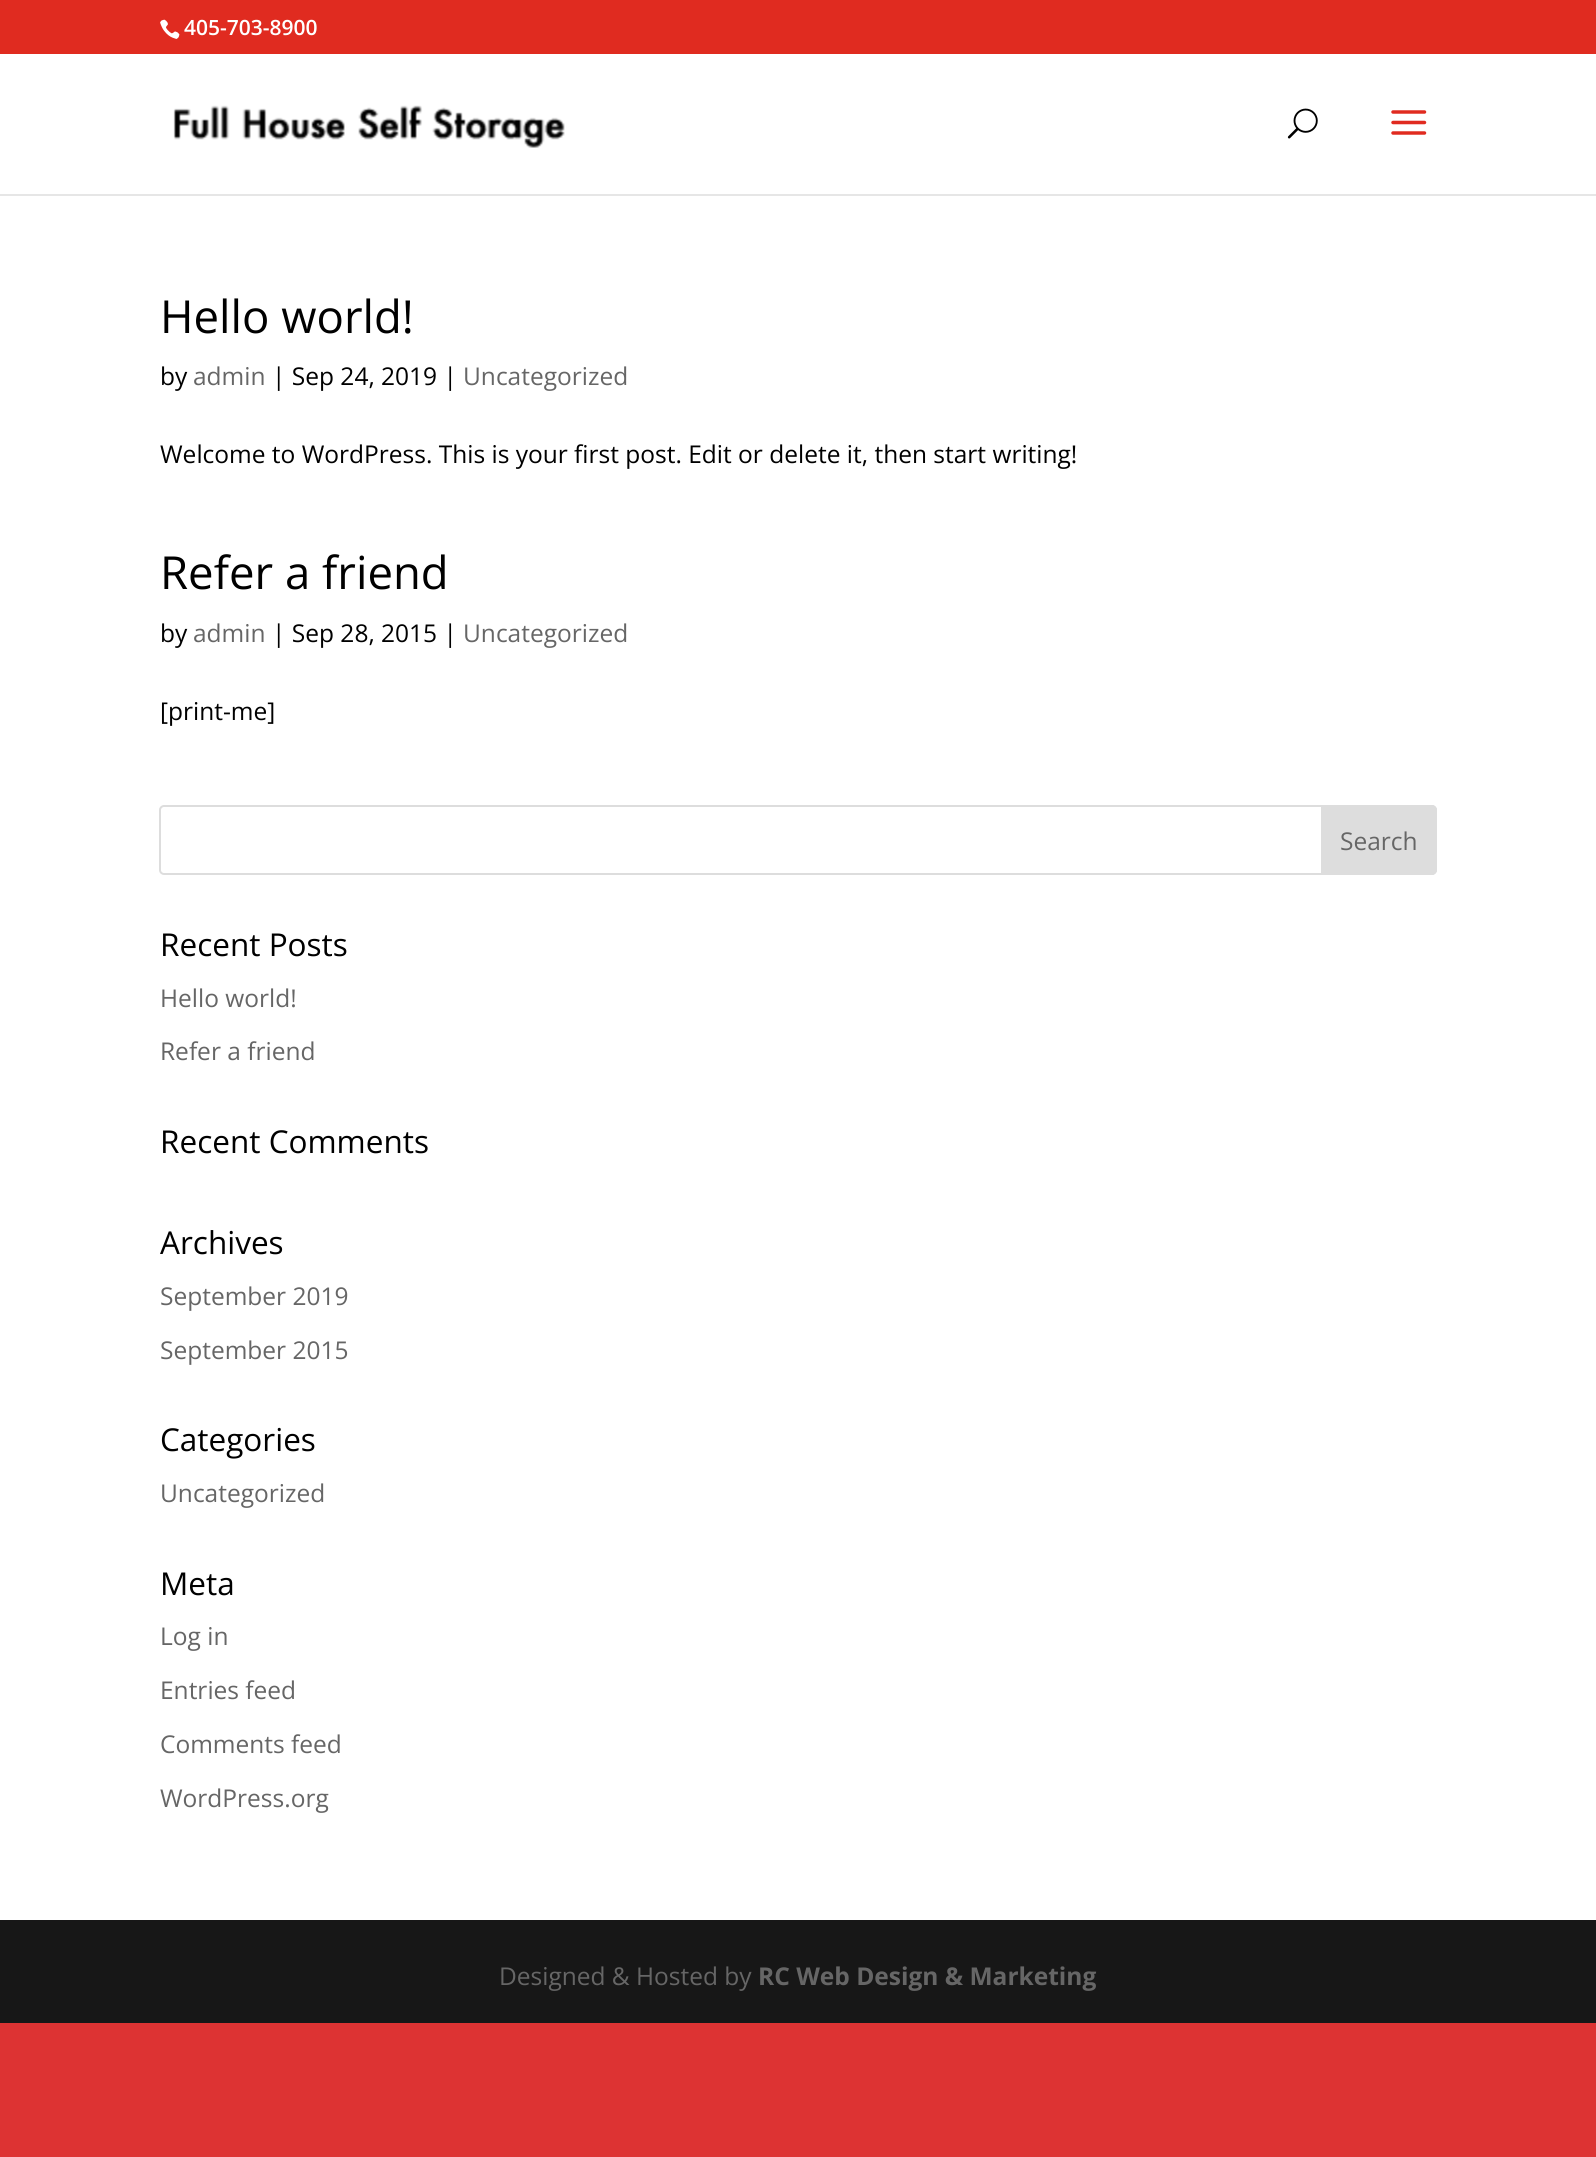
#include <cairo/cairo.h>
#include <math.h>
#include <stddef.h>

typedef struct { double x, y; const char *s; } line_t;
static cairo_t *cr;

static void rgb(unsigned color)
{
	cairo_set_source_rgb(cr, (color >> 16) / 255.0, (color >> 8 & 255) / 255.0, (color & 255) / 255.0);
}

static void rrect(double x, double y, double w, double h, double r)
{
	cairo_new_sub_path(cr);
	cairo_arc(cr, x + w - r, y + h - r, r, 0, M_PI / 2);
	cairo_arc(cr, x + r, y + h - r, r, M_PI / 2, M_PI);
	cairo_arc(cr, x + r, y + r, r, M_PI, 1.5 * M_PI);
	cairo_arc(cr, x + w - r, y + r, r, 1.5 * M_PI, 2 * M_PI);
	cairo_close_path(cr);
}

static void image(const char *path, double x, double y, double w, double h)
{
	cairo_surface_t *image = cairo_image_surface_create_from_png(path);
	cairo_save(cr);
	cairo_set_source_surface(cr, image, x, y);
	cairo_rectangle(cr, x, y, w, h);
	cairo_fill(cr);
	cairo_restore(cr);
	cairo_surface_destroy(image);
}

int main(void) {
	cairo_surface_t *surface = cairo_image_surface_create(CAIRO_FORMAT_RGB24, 1596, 2157);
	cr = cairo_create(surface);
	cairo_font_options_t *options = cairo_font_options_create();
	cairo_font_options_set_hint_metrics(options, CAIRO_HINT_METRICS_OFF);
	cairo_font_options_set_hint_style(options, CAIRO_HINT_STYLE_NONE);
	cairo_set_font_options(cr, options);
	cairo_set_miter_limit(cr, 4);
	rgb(0xdd3333);
	cairo_paint(cr);
	rgb(0xe02b20);
	cairo_rectangle(cr, 0, 0, 1596, 54);
	cairo_fill(cr);
	image("img/1.png", 160, 19, 20, 20);
	rgb(0xe6e6e6);
	cairo_rectangle(cr, 0, 194, 1596, 2);
	cairo_fill(cr);
	rgb(0xffffff);
	cairo_rectangle(cr, 0, 54, 1596, 140);
	cairo_fill(cr);
	image("img/2.png", 173, 105, 392, 43);
	image("img/3.png", 1287, 108, 31, 31);
	image("img/4.png", 1391, 110, 36, 25);
	cairo_rectangle(cr, 0, 196, 1596, 1724);
	cairo_fill(cr);
	rrect(160, 806, 1276, 68, 4);
	rgb(0xdddddd);
	cairo_stroke(cr);
	cairo_new_path(cr);
	cairo_move_to(cr, 1322, 806);
	cairo_line_to(cr, 1432, 806);
	cairo_curve_to(cr, 1434, 806, 1436, 808, 1436, 810);
	cairo_line_to(cr, 1436, 870);
	cairo_curve_to(cr, 1436, 872, 1434, 874, 1432, 874);
	cairo_line_to(cr, 1322, 874);
	cairo_close_path(cr);
	cairo_fill_preserve(cr);
	cairo_stroke(cr);
	rgb(0x171717);
	cairo_rectangle(cr, 0, 1920, 1596, 103);
	cairo_fill(cr);
	cairo_select_font_face(cr, "Open Sans SemiBold", CAIRO_FONT_SLANT_NORMAL, CAIRO_FONT_WEIGHT_NORMAL);
	cairo_set_font_size(cr, 21);
	rgb(0xffffff);
	cairo_move_to(cr, 184, 35);
	cairo_show_text(cr, "405-703-8900");
	cairo_select_font_face(cr, "Open Sans", CAIRO_FONT_SLANT_NORMAL, CAIRO_FONT_WEIGHT_NORMAL);
	cairo_set_font_size(cr, 45.5);
	rgb(0x000000);
	cairo_move_to(cr, 160, 333);
	cairo_show_text(cr, "Hello world!");
	cairo_set_font_size(cr, 24.5);
	cairo_move_to(cr, 160, 385);
	cairo_show_text(cr, "by");
	rgb(0x666666);
	cairo_move_to(cr, 193, 385);
	cairo_show_text(cr, "admin");
	rgb(0x000000);
	cairo_move_to(cr, 272, 385);
	cairo_show_text(cr, "| Sep 24, 2019 |");
	rgb(0x666666);
	cairo_move_to(cr, 463, 385);
	cairo_show_text(cr, "Uncategorized");
	rgb(0x000000);
	cairo_move_to(cr, 160, 463);
	cairo_show_text(cr, "Welcome to WordPress. This is your first post. Edit or delete it, then start writing!");
	cairo_set_font_size(cr, 45.5);
	cairo_move_to(cr, 160, 589);
	cairo_show_text(cr, "Refer a friend");
	cairo_set_font_size(cr, 24.5);
	cairo_move_to(cr, 160, 642);
	cairo_show_text(cr, "by");
	rgb(0x666666);
	cairo_move_to(cr, 193, 642);
	cairo_show_text(cr, "admin");
	rgb(0x000000);
	cairo_move_to(cr, 272, 642);
	cairo_show_text(cr, "| Sep 28, 2015 |");
	rgb(0x666666);
	cairo_move_to(cr, 463, 642);
	cairo_show_text(cr, "Uncategorized");
	rgb(0x000000);
	cairo_move_to(cr, 160, 720);
	cairo_show_text(cr, "[print-me]");
	rgb(0x666666);
	cairo_move_to(cr, 1340, 850);
	cairo_show_text(cr, "Search");
	cairo_set_font_size(cr, 31.5);
	rgb(0x000000);
	cairo_move_to(cr, 160, 956);
	cairo_show_text(cr, "Recent Posts");
	cairo_set_font_size(cr, 24.5);
	rgb(0x666666);
	cairo_move_to(cr, 160, 1007);
	cairo_show_text(cr, "Hello world!");
	cairo_move_to(cr, 160, 1060);
	cairo_show_text(cr, "Refer a friend");
	cairo_set_font_size(cr, 31.5);
	rgb(0x000000);
	cairo_move_to(cr, 160, 1153);
	cairo_show_text(cr, "Recent Comments");
	cairo_move_to(cr, 160, 1254);
	cairo_show_text(cr, "Archives");
	cairo_set_font_size(cr, 24.5);
	rgb(0x666666);
	cairo_move_to(cr, 160, 1305);
	cairo_show_text(cr, "September 2019");
	cairo_move_to(cr, 160, 1359);
	cairo_show_text(cr, "September 2015");
	cairo_set_font_size(cr, 31.5);
	rgb(0x000000);
	cairo_move_to(cr, 160, 1451);
	cairo_show_text(cr, "Categories");
	cairo_set_font_size(cr, 24.5);
	rgb(0x666666);
	cairo_move_to(cr, 160, 1502);
	cairo_show_text(cr, "Uncategorized");
	cairo_set_font_size(cr, 31.5);
	rgb(0x000000);
	cairo_move_to(cr, 160, 1595);
	cairo_show_text(cr, "Meta");
	cairo_set_font_size(cr, 24.5);
	rgb(0x666666);
	{
		static const line_t items[] = {
			{160, 1645, "Log in"},
			{160, 1699, "Entries feed"},
			{160, 1753, "Comments feed"},
			{160, 1807, "WordPress.org"},
			{499, 1985, "Designed & Hosted by"},
		};
		for (size_t i = 0; i < sizeof items / sizeof *items; i++) {
			cairo_move_to(cr, items[i].x, items[i].y);
			cairo_show_text(cr, items[i].s);
		}
	}
	cairo_select_font_face(cr, "Open Sans", CAIRO_FONT_SLANT_NORMAL, CAIRO_FONT_WEIGHT_BOLD);
	cairo_move_to(cr, 758, 1985);
	cairo_show_text(cr, "RC Web Design & Marketing");
	cairo_surface_write_to_png(surface, "page.png");
	cairo_font_options_destroy(options);
	cairo_destroy(cr);
	cairo_surface_destroy(surface);
	return 0;
}
